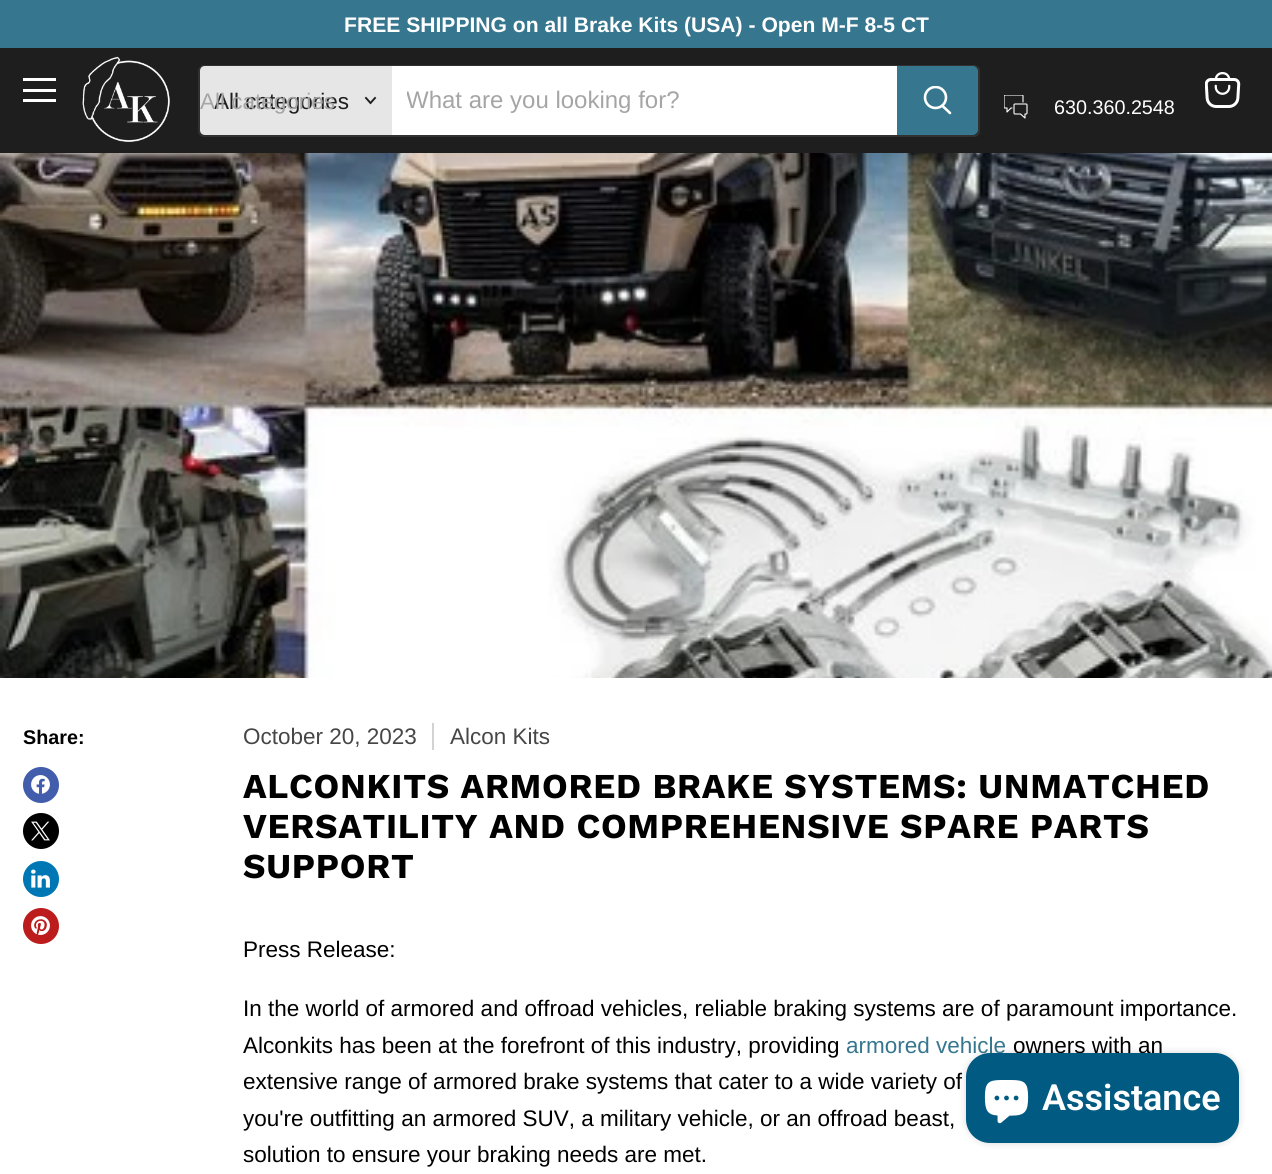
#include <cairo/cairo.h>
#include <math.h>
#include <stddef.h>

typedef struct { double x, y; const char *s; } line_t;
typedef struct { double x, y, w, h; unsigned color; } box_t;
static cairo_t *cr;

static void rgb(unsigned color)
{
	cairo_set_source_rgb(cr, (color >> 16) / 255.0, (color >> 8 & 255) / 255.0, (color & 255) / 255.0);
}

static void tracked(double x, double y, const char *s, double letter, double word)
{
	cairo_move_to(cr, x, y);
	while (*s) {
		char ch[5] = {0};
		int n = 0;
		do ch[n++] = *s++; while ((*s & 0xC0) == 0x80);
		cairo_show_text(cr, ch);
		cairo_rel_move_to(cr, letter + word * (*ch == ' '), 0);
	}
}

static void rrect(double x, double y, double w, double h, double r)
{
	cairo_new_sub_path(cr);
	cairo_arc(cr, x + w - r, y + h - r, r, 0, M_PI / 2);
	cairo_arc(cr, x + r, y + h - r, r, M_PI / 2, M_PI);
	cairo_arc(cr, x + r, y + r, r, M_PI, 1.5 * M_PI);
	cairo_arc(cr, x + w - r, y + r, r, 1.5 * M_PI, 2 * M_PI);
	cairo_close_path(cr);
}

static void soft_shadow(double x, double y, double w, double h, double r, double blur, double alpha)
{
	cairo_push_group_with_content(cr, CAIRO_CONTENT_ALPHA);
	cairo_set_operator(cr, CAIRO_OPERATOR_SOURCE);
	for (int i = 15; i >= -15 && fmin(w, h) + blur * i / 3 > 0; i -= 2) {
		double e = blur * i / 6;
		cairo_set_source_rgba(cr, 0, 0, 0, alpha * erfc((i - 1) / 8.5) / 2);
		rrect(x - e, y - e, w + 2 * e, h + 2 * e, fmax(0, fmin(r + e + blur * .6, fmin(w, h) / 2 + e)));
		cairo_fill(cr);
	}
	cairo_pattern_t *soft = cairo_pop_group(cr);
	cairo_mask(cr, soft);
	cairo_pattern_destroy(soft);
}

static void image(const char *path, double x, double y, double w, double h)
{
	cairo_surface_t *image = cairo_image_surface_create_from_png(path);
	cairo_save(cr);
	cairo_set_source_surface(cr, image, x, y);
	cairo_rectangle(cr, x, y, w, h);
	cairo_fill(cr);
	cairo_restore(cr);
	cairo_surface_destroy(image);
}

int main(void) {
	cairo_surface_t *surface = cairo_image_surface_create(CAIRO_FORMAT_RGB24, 1272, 1174);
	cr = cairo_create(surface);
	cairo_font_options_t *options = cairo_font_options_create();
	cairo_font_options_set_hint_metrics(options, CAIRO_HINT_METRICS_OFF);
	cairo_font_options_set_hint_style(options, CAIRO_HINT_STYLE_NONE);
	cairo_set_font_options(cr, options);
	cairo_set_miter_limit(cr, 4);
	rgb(0xffffff);
	cairo_paint(cr);
	{
		static const box_t items[] = {
			{0, 0, 1272, 48, 0x36768e},
			{0, 48, 1272, 105, 0x1e1e1e},
			{23, 78, 33, 3, 0xffffff},
			{23, 89, 33, 3, 0xffffff},
			{23, 99, 33, 3, 0xffffff},
		};
		for (size_t i = 0; i < sizeof items / sizeof *items; i++) {
			rgb(items[i].color);
			cairo_rectangle(cr, items[i].x, items[i].y, items[i].w, items[i].h);
			cairo_fill(cr);
		}
	}
	image("img/1.png", 82, 56, 88, 86);
	rrect(199, 66, 780, 70, 5);
	cairo_set_source_rgba(cr, 0.502, 0.502, 0.502, 0.2);
	cairo_stroke(cr);
	rgb(0xe6e6e6);
	cairo_new_path(cr);
	cairo_move_to(cr, 205, 66);
	cairo_line_to(cr, 392, 66);
	cairo_line_to(cr, 392, 135);
	cairo_line_to(cr, 205, 135);
	cairo_curve_to(cr, 202, 135, 200, 133, 200, 130);
	cairo_line_to(cr, 200, 71);
	cairo_curve_to(cr, 200, 68, 202, 66, 205, 66);
	cairo_close_path(cr);
	cairo_fill(cr);
	cairo_new_path(cr);
	cairo_move_to(cr, 370.5, 103);
	cairo_line_to(cr, 375, 98);
	cairo_move_to(cr, 370.5, 103);
	cairo_line_to(cr, 366, 98);
	rgb(0x1e1e1e);
	cairo_set_line_width(cr, 1.9);
	cairo_set_line_cap(cr, CAIRO_LINE_CAP_SQUARE);
	cairo_stroke(cr);
	rgb(0xffffff);
	cairo_rectangle(cr, 392, 66, 505, 69);
	cairo_fill(cr);
	rgb(0x36768e);
	cairo_new_path(cr);
	cairo_move_to(cr, 898, 67);
	cairo_line_to(cr, 973, 67);
	cairo_curve_to(cr, 975, 67, 977, 69, 977, 71);
	cairo_line_to(cr, 977, 130);
	cairo_curve_to(cr, 977, 132, 975, 134, 973, 134);
	cairo_line_to(cr, 898, 134);
	cairo_close_path(cr);
	cairo_fill_preserve(cr);
	cairo_set_line_width(cr, 2);
	cairo_set_line_cap(cr, CAIRO_LINE_CAP_BUTT);
	cairo_stroke(cr);
	cairo_new_path(cr);
	cairo_move_to(cr, 950, 113);
	cairo_line_to(cr, 942.5, 106);
	rgb(0xffffff);
	cairo_set_line_width(cr, 2.6);
	cairo_set_line_cap(cr, CAIRO_LINE_CAP_ROUND);
	cairo_stroke(cr);
	cairo_save(cr);
	cairo_rectangle(cr, 923, 86, 30, 31);
	cairo_clip(cr);
	cairo_arc(cr, 935.5, 97.5, 10.5, 0, 2 * M_PI);
	cairo_set_line_cap(cr, CAIRO_LINE_CAP_BUTT);
	cairo_stroke(cr);
	cairo_restore(cr);
	image("img/2.png", 1004, 95, 24, 24);
	image("img/3.png", 1205, 72, 36, 36);
	image("img/4.png", 0, 153, 1272, 525);
	rgb(0x425dab);
	cairo_arc(cr, 41, 785, 18, 0, 2 * M_PI);
	cairo_fill(cr);
	image("img/5.png", 31, 775, 19, 19);
	rgb(0x000000);
	cairo_arc(cr, 41, 831, 18, 0, 2 * M_PI);
	cairo_fill(cr);
	image("img/6.png", 31, 821, 19, 20);
	rgb(0x0077b5);
	cairo_arc(cr, 41, 879, 18, 0, 2 * M_PI);
	cairo_fill(cr);
	image("img/7.png", 31, 869, 19, 19);
	rgb(0xbd1c1c);
	cairo_arc(cr, 41, 926, 18, 0, 2 * M_PI);
	cairo_fill(cr);
	image("img/8.png", 31, 916, 19, 19);
	rgb(0xd3d3d3);
	cairo_rectangle(cr, 432, 723, 2, 27);
	cairo_fill(cr);
	rgb(0x000000);
	soft_shadow(966, 1053, 273, 90, 24, 4, 0.15);
	cairo_select_font_face(cr, "Liberation Sans", CAIRO_FONT_SLANT_NORMAL, CAIRO_FONT_WEIGHT_BOLD);
	cairo_set_font_size(cr, 21.1);
	rgb(0xffffff);
	cairo_move_to(cr, 344, 32);
	cairo_show_text(cr, "FREE SHIPPING on all Brake Kits (USA) - Open M-F 8-5 CT");
	cairo_select_font_face(cr, "Liberation Sans", CAIRO_FONT_SLANT_NORMAL, CAIRO_FONT_WEIGHT_NORMAL);
	cairo_set_font_size(cr, 22.5);
	rgb(0x1e1e1e);
	cairo_move_to(cr, 214, 109);
	cairo_show_text(cr, "All categories");
	rgb(0xa5a5a5);
	cairo_move_to(cr, 200, 109);
	cairo_show_text(cr, "All categories");
	cairo_save(cr);
	cairo_rectangle(cr, 407, 87, 475, 27);
	cairo_clip(cr);
	cairo_set_font_size(cr, 24);
	cairo_move_to(cr, 406, 108);
	cairo_show_text(cr, "What are you looking for?");
	cairo_restore(cr);
	cairo_set_font_size(cr, 19.75);
	rgb(0xffffff);
	cairo_move_to(cr, 1054, 114);
	cairo_show_text(cr, "630.360.2548");
	cairo_select_font_face(cr, "Liberation Sans", CAIRO_FONT_SLANT_NORMAL, CAIRO_FONT_WEIGHT_BOLD);
	rgb(0x000000);
	cairo_move_to(cr, 23, 744);
	cairo_show_text(cr, "Share:");
	cairo_select_font_face(cr, "Liberation Sans", CAIRO_FONT_SLANT_NORMAL, CAIRO_FONT_WEIGHT_NORMAL);
	cairo_set_font_size(cr, 22.5);
	rgb(0x464646);
	cairo_move_to(cr, 243, 744);
	cairo_show_text(cr, "October 20, 2023");
	cairo_move_to(cr, 450, 744);
	cairo_show_text(cr, "Alcon Kits");
	cairo_select_font_face(cr, "Work Sans", CAIRO_FONT_SLANT_NORMAL, CAIRO_FONT_WEIGHT_BOLD);
	cairo_set_font_size(cr, 34.9);
	rgb(0x000000);
	{
		static const line_t items[] = {
			{243, 798, "ALCONKITS ARMORED BRAKE SYSTEMS: UNMATCHED"},
			{243, 838, "VERSATILITY AND COMPREHENSIVE SPARE PARTS"},
			{243, 878, "SUPPORT"},
		};
		for (size_t i = 0; i < sizeof items / sizeof *items; i++) {
			tracked(items[i].x, items[i].y, items[i].s, 0.7, 0);
		}
	}
	cairo_select_font_face(cr, "Liberation Sans", CAIRO_FONT_SLANT_NORMAL, CAIRO_FONT_WEIGHT_NORMAL);
	cairo_set_font_size(cr, 22.5);
	{
		static const line_t items[] = {
			{243, 957, "Press Release:"},
			{243, 1016, "In the world of armored and offroad vehicles, reliable braking systems are of paramount importance."},
			{243, 1053, "Alconkits has been at the forefront of this industry, providing"},
		};
		for (size_t i = 0; i < sizeof items / sizeof *items; i++) {
			cairo_move_to(cr, items[i].x, items[i].y);
			cairo_show_text(cr, items[i].s);
		}
	}
	rgb(0x36768e);
	cairo_move_to(cr, 846, 1053);
	cairo_show_text(cr, "armored vehicle");
	rgb(0x000000);
	{
		static const line_t items[] = {
			{1013, 1053, "owners with an"},
			{243, 1089, "extensive range of armored brake systems that cater to a wide variety of"},
			{243, 1126, "you're outfitting an armored SUV, a military vehicle, or an offroad beast,"},
			{243, 1162, "solution to ensure your braking needs are met."},
		};
		for (size_t i = 0; i < sizeof items / sizeof *items; i++) {
			cairo_move_to(cr, items[i].x, items[i].y);
			cairo_show_text(cr, items[i].s);
		}
	}
	rgb(0x005a81);
	rrect(966, 1053, 273, 90, 24);
	cairo_fill(cr);
	image("img/9.png", 984, 1080, 45, 44);
	cairo_select_font_face(cr, "Roboto SemiBold", CAIRO_FONT_SLANT_NORMAL, CAIRO_FONT_WEIGHT_NORMAL);
	cairo_set_font_size(cr, 36);
	rgb(0xffffff);
	cairo_move_to(cr, 1042, 1110);
	cairo_show_text(cr, "Assistance");
	cairo_surface_write_to_png(surface, "page.png");
	cairo_font_options_destroy(options);
	cairo_destroy(cr);
	cairo_surface_destroy(surface);
	return 0;
}
